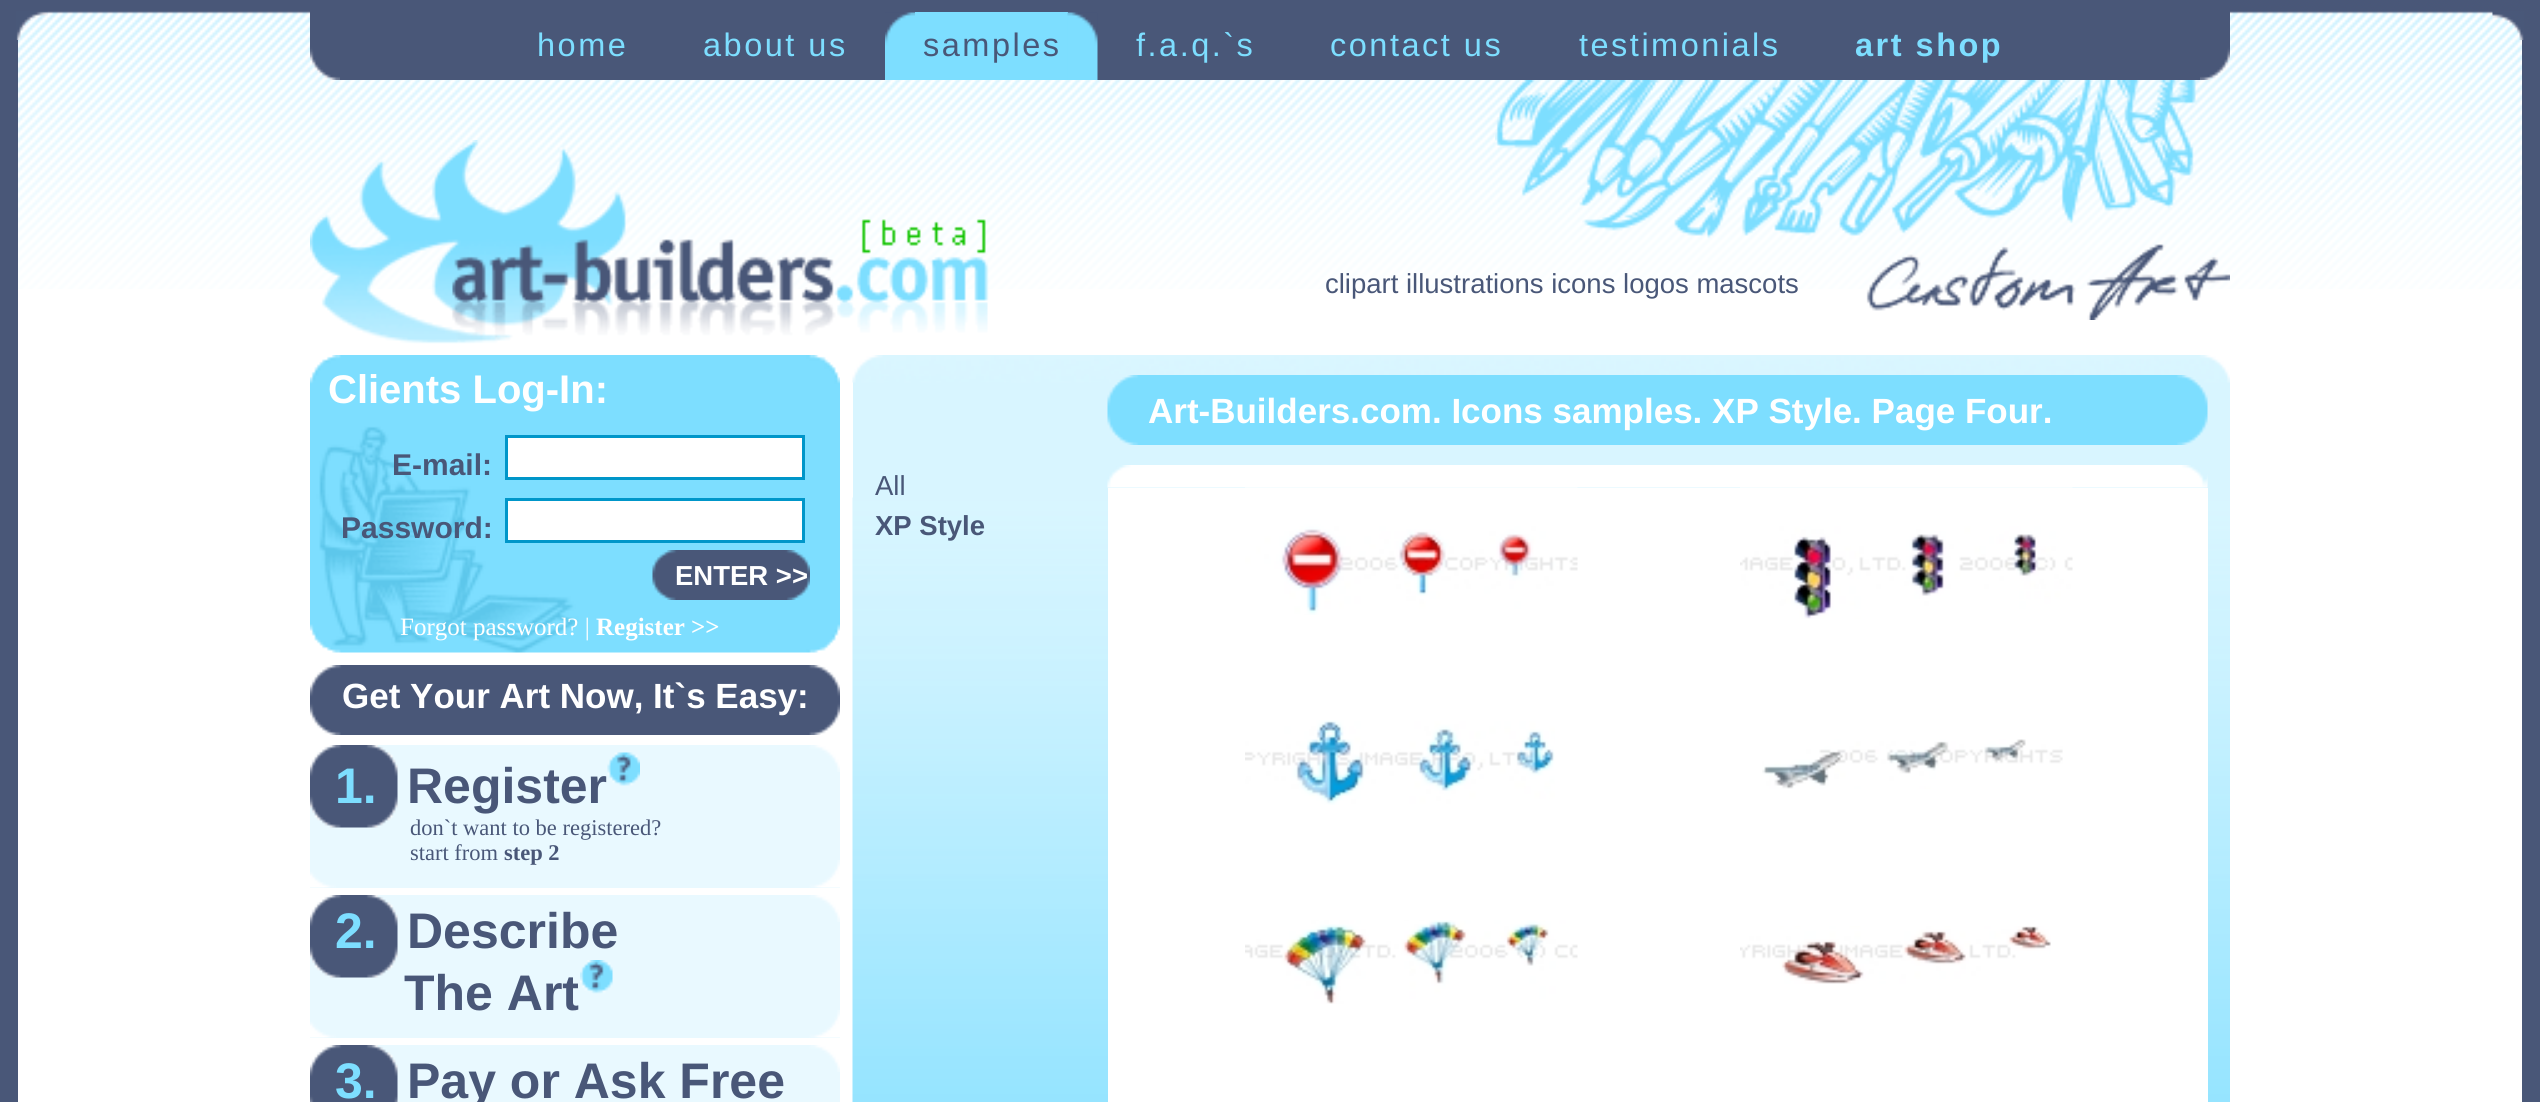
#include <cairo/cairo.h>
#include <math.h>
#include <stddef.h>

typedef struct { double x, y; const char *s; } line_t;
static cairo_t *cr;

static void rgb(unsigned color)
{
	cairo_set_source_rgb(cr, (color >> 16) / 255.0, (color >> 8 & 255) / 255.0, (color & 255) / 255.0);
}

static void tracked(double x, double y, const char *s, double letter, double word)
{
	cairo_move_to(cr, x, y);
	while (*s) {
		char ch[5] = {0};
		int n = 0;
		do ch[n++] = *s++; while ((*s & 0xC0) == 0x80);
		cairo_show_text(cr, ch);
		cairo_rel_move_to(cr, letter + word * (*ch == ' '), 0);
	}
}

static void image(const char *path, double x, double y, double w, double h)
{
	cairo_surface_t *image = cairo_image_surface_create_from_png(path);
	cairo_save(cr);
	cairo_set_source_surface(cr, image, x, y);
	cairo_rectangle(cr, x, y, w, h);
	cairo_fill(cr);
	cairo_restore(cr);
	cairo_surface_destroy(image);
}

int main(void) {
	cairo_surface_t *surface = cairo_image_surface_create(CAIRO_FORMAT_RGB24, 2540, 1102);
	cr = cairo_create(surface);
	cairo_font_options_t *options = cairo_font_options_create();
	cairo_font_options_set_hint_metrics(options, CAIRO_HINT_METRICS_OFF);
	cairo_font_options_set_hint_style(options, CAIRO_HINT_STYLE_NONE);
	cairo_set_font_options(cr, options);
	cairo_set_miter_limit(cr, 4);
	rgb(0xffffff);
	cairo_paint(cr);
	image("img/1.png", 0, 0, 2540, 289);
	rgb(0x495778);
	cairo_rectangle(cr, 0, 11, 18, 1091);
	cairo_fill(cr);
	image("img/2.png", 16, 11, 32, 29);
	image("img/3.png", 310, 11, 30, 69);
	image("img/4.png", 2200, 11, 30, 69);
	cairo_rectangle(cr, 340, 11, 1860, 69);
	cairo_fill(cr);
	image("img/5.png", 885, 12, 30, 68);
	rgb(0x7ddeff);
	cairo_rectangle(cr, 915, 12, 153, 68);
	cairo_fill(cr);
	image("img/6.png", 1067, 12, 31, 68);
	image("img/7.png", 310, 140, 678, 204);
	image("img/8.png", 452, 219, 537, 84);
	image("img/9.png", 1495, 80, 735, 240);
	image("img/10.png", 310, 355, 530, 298);
	rgb(0xffffff);
	cairo_rectangle(cr, 506.5, 436.5, 297, 42);
	cairo_fill_preserve(cr);
	rgb(0x0096c9);
	cairo_set_line_width(cr, 3);
	cairo_stroke(cr);
	rgb(0xffffff);
	cairo_rectangle(cr, 506.5, 499.5, 297, 42);
	cairo_fill_preserve(cr);
	rgb(0x0096c9);
	cairo_stroke(cr);
	image("img/11.png", 652, 550, 158, 50);
	image("img/12.png", 310, 665, 530, 70);
	rgb(0xe9f9ff);
	cairo_rectangle(cr, 310, 745, 530, 143);
	cairo_fill(cr);
	image("img/13.png", 310, 860, 530, 28);
	image("img/14.png", 310, 745, 530, 27);
	image("img/15.png", 310, 745, 88, 83);
	image("img/16.png", 607, 752, 33, 34);
	cairo_rectangle(cr, 310, 895, 530, 143);
	cairo_fill(cr);
	image("img/13.png", 310, 1010, 530, 28);
	image("img/14.png", 310, 895, 530, 27);
	image("img/15.png", 310, 895, 88, 83);
	image("img/17.png", 580, 960, 33, 34);
	cairo_rectangle(cr, 311, 1045, 529, 57);
	cairo_fill(cr);
	image("img/14.png", 310, 1045, 530, 27);
	image("img/18.png", 310, 1045, 88, 57);
	rgb(0xd8f5ff);
	cairo_rectangle(cr, 853, 382, 1377, 116);
	cairo_fill(cr);
	image("img/19.png", 852, 497, 1378, 605);
	image("img/20.png", 852, 355, 1378, 28);
	image("img/21.png", 1107, 375, 33, 70);
	rgb(0x7ddeff);
	cairo_rectangle(cr, 1140, 375, 1035, 70);
	cairo_fill(cr);
	image("img/22.png", 2175, 375, 33, 70);
	image("img/23.png", 1107, 465, 1101, 23);
	rgb(0xffffff);
	cairo_rectangle(cr, 1108, 488, 1100, 614);
	cairo_fill(cr);
	image("img/24.png", 1245, 487, 333, 128);
	image("img/25.png", 1740, 487, 333, 132);
	image("img/26.png", 1245, 720, 310, 85);
	image("img/27.png", 1762, 739, 301, 50);
	image("img/28.png", 1245, 920, 333, 84);
	image("img/29.png", 1740, 926, 311, 58);
	rgb(0x495778);
	cairo_rectangle(cr, 2522, 11, 18, 1091);
	cairo_fill(cr);
	image("img/30.png", 2492, 11, 32, 29);
	cairo_select_font_face(cr, "Liberation Sans", CAIRO_FONT_SLANT_NORMAL, CAIRO_FONT_WEIGHT_NORMAL);
	cairo_set_font_size(cr, 32.5);
	rgb(0x7ddeff);
	tracked(537, 56, "home", 2.5, 0);
	tracked(703, 56, "about us", 2.5, 0);
	rgb(0x495778);
	tracked(923, 56, "samples", 2.5, 0);
	rgb(0x7ddeff);
	{
		static const line_t items[] = {
			{1136, 56, "f.a.q.`s"},
			{1330, 56, "contact us"},
			{1579, 56, "testimonials"},
		};
		for (size_t i = 0; i < sizeof items / sizeof *items; i++) {
			tracked(items[i].x, items[i].y, items[i].s, 2.5, 0);
		}
	}
	cairo_select_font_face(cr, "Liberation Sans", CAIRO_FONT_SLANT_NORMAL, CAIRO_FONT_WEIGHT_BOLD);
	tracked(1855, 56, "art shop", 2.5, 0);
	cairo_select_font_face(cr, "Liberation Sans", CAIRO_FONT_SLANT_NORMAL, CAIRO_FONT_WEIGHT_NORMAL);
	cairo_set_font_size(cr, 27.5);
	rgb(0x495778);
	cairo_move_to(cr, 1325, 293);
	cairo_show_text(cr, "clipart illustrations icons logos mascots");
	cairo_select_font_face(cr, "Liberation Sans", CAIRO_FONT_SLANT_NORMAL, CAIRO_FONT_WEIGHT_BOLD);
	cairo_set_font_size(cr, 40);
	rgb(0xffffff);
	cairo_move_to(cr, 328, 403);
	cairo_show_text(cr, "Clients Log-In:");
	cairo_set_font_size(cr, 30);
	rgb(0x495778);
	cairo_move_to(cr, 392, 475);
	cairo_show_text(cr, "E-mail:");
	cairo_move_to(cr, 341, 538);
	cairo_show_text(cr, "Password:");
	cairo_set_font_size(cr, 27.5);
	rgb(0xffffff);
	cairo_move_to(cr, 675, 585);
	cairo_show_text(cr, "ENTER >>");
	cairo_select_font_face(cr, "Liberation Serif", CAIRO_FONT_SLANT_NORMAL, CAIRO_FONT_WEIGHT_NORMAL);
	cairo_set_font_size(cr, 25);
	cairo_move_to(cr, 400, 635);
	cairo_show_text(cr, "Forgot password? |");
	cairo_select_font_face(cr, "Liberation Serif", CAIRO_FONT_SLANT_NORMAL, CAIRO_FONT_WEIGHT_BOLD);
	cairo_move_to(cr, 596, 635);
	cairo_show_text(cr, "Register >>");
	cairo_select_font_face(cr, "Liberation Sans", CAIRO_FONT_SLANT_NORMAL, CAIRO_FONT_WEIGHT_BOLD);
	cairo_set_font_size(cr, 35);
	cairo_move_to(cr, 342, 708);
	cairo_show_text(cr, "Get Your Art Now, It`s Easy:");
	cairo_set_font_size(cr, 50);
	rgb(0x7ddeff);
	cairo_move_to(cr, 335, 803);
	cairo_show_text(cr, "1.");
	rgb(0x495778);
	cairo_move_to(cr, 407, 803);
	cairo_show_text(cr, "Register");
	cairo_select_font_face(cr, "Liberation Serif", CAIRO_FONT_SLANT_NORMAL, CAIRO_FONT_WEIGHT_NORMAL);
	cairo_set_font_size(cr, 22.5);
	cairo_move_to(cr, 410, 835);
	cairo_show_text(cr, "don`t want to be registered?");
	cairo_move_to(cr, 410, 860);
	cairo_show_text(cr, "start from");
	cairo_select_font_face(cr, "Liberation Serif", CAIRO_FONT_SLANT_NORMAL, CAIRO_FONT_WEIGHT_BOLD);
	cairo_move_to(cr, 504, 860);
	cairo_show_text(cr, "step 2");
	cairo_select_font_face(cr, "Liberation Sans", CAIRO_FONT_SLANT_NORMAL, CAIRO_FONT_WEIGHT_BOLD);
	cairo_set_font_size(cr, 50);
	rgb(0x7ddeff);
	cairo_move_to(cr, 335, 948);
	cairo_show_text(cr, "2.");
	rgb(0x495778);
	cairo_move_to(cr, 407, 948);
	cairo_show_text(cr, "Describe");
	cairo_move_to(cr, 404, 1010);
	cairo_show_text(cr, "The Art");
	rgb(0x7ddeff);
	cairo_move_to(cr, 335, 1098);
	cairo_show_text(cr, "3.");
	rgb(0x495778);
	cairo_move_to(cr, 407, 1098);
	cairo_show_text(cr, "Pay or Ask Free");
	cairo_set_font_size(cr, 35);
	rgb(0xffffff);
	cairo_move_to(cr, 1148, 423);
	cairo_show_text(cr, "Art-Builders.com. Icons samples. XP Style. Page Four.");
	cairo_select_font_face(cr, "Liberation Sans", CAIRO_FONT_SLANT_NORMAL, CAIRO_FONT_WEIGHT_NORMAL);
	cairo_set_font_size(cr, 27.5);
	rgb(0x495778);
	cairo_move_to(cr, 875, 495);
	cairo_show_text(cr, "All");
	cairo_select_font_face(cr, "Liberation Sans", CAIRO_FONT_SLANT_NORMAL, CAIRO_FONT_WEIGHT_BOLD);
	cairo_move_to(cr, 875, 535);
	cairo_show_text(cr, "XP Style");
	cairo_surface_write_to_png(surface, "page.png");
	cairo_font_options_destroy(options);
	cairo_destroy(cr);
	cairo_surface_destroy(surface);
	return 0;
}
